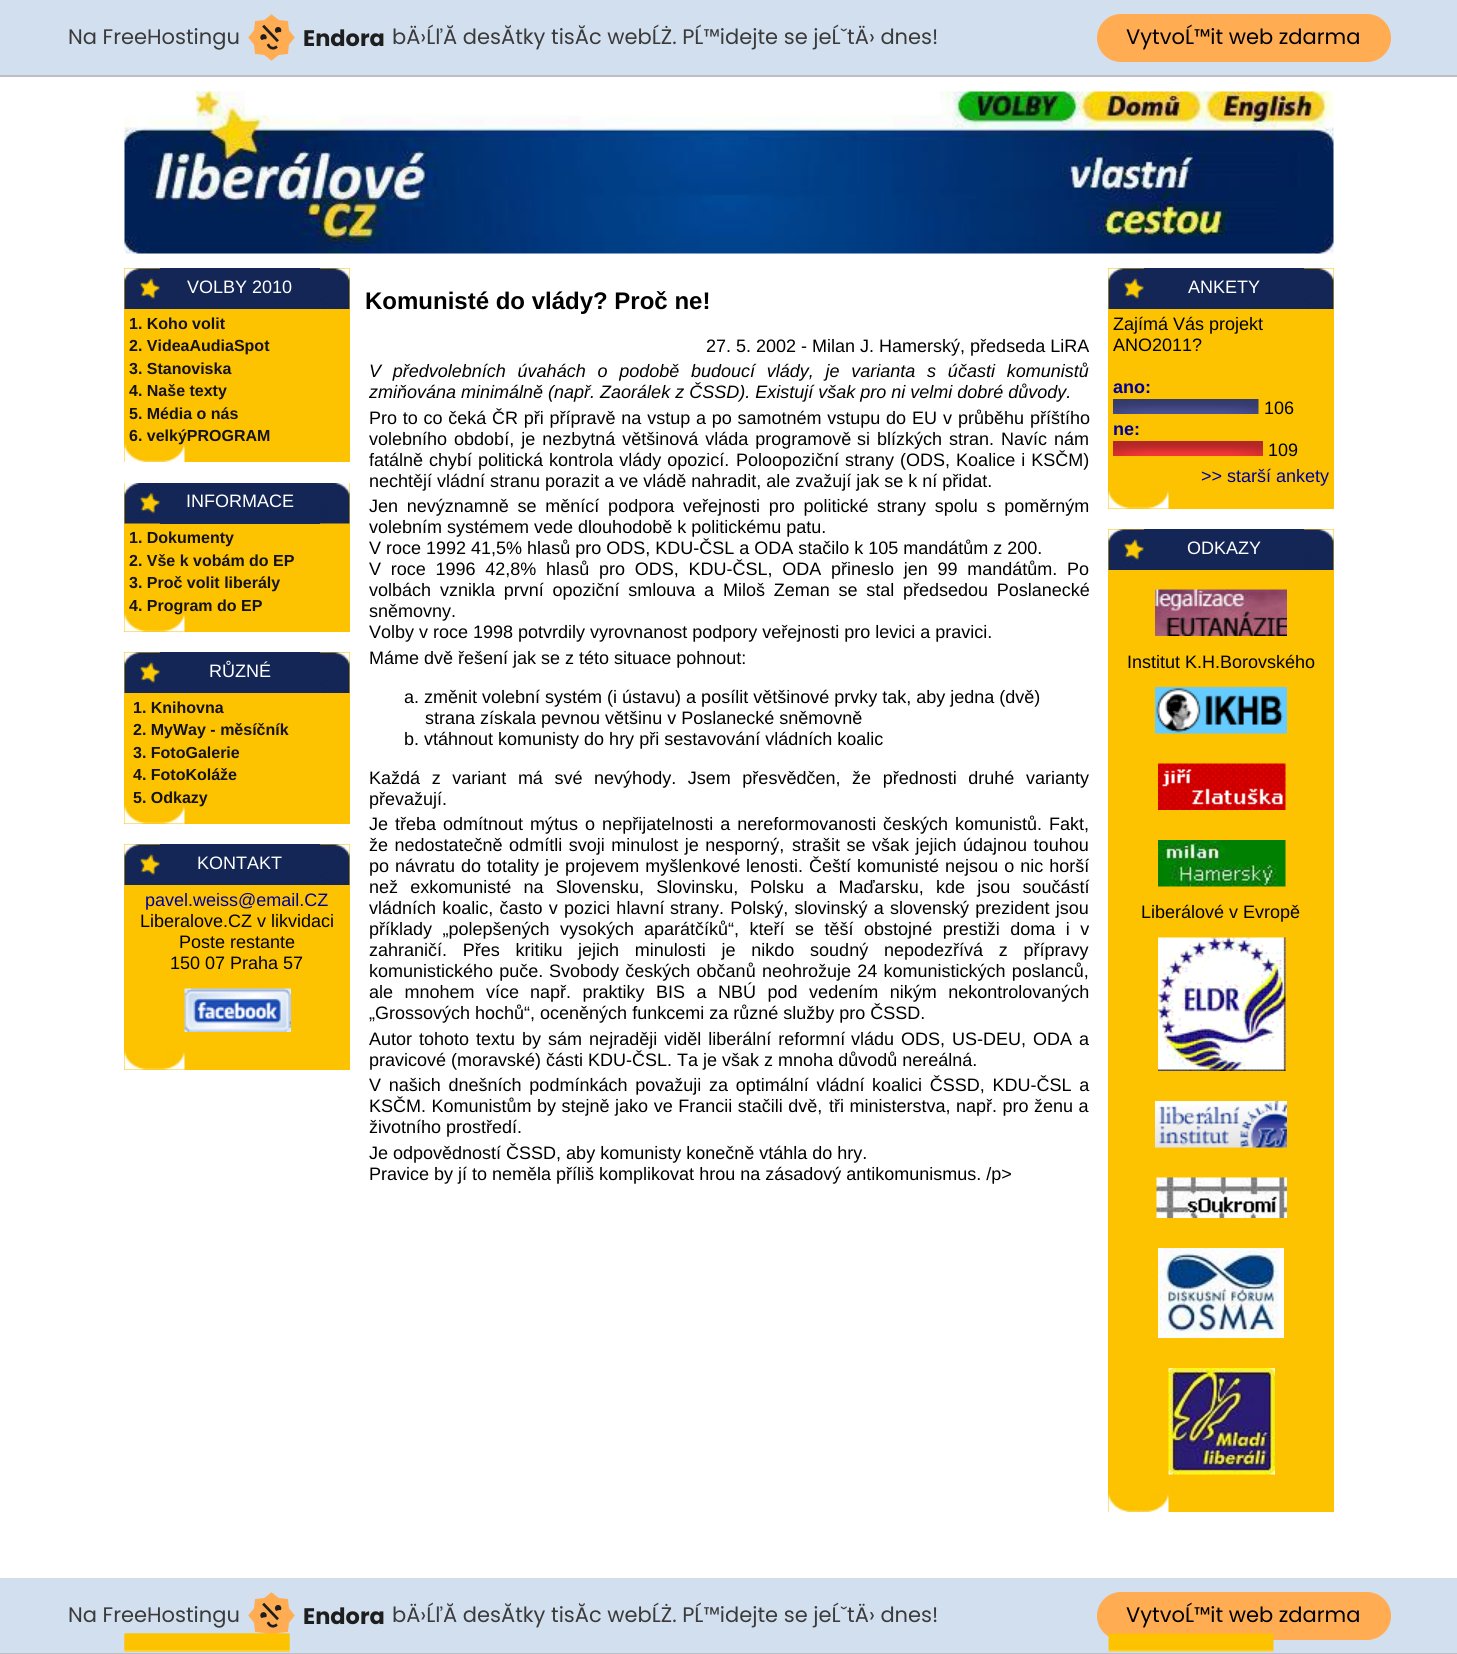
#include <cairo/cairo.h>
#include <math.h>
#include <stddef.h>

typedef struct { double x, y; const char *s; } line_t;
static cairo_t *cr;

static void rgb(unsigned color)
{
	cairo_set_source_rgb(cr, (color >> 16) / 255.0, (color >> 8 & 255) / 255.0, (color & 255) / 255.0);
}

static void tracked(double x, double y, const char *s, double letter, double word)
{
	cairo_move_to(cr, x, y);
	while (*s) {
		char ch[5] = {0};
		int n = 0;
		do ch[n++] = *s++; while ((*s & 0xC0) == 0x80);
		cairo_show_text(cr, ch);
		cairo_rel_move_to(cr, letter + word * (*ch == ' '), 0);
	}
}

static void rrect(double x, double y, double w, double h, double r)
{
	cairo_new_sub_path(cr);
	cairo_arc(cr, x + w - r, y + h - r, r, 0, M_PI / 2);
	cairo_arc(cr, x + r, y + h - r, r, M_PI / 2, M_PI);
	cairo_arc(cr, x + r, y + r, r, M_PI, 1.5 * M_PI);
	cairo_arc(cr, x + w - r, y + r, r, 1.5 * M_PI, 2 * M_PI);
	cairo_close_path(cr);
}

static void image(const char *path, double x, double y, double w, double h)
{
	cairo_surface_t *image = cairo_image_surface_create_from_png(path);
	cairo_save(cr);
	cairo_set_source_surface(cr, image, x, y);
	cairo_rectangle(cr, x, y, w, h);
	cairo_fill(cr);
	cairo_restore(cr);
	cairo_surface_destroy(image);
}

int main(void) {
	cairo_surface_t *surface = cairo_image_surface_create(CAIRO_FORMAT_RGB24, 1457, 1654);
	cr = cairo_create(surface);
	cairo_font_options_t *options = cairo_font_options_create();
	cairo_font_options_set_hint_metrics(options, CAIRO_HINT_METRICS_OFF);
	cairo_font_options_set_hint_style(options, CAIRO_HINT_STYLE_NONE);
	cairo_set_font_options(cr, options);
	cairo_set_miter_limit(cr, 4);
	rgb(0xffffff);
	cairo_paint(cr);
	rgb(0xd2dfef);
	cairo_rectangle(cr, 0, 0, 1457, 75);
	cairo_fill(cr);
	rgb(0xbebfc4);
	cairo_rectangle(cr, 0, 75, 1457, 2);
	cairo_fill(cr);
	image("img/1.png", 248, 14, 47, 47);
	rgb(0xffac52);
	rrect(1097, 14, 294, 48, 24);
	cairo_fill(cr);
	image("img/2.png", 124, 91, 1210, 163);
	rgb(0xfdc300);
	cairo_rectangle(cr, 124, 268, 226, 194);
	cairo_fill(cr);
	image("img/3.png", 124, 268, 36, 41);
	rgb(0x142656);
	cairo_rectangle(cr, 160, 268, 160, 41);
	cairo_fill(cr);
	image("img/4.png", 320, 268, 30, 41);
	image("img/5.png", 124, 444, 31, 18);
	image("img/6.png", 154, 444, 31, 18);
	rgb(0xd2dfef);
	cairo_rectangle(cr, 0, 1578, 1457, 75);
	cairo_fill(cr);
	image("img/32.png", 248, 1592, 47, 42);
	image("img/7.png", 124, 1633, 166, 19);
	rgb(0xfdc300);
	cairo_rectangle(cr, 124, 483, 226, 149);
	cairo_fill(cr);
	image("img/8.png", 124, 483, 36, 41);
	rgb(0x142656);
	cairo_rectangle(cr, 160, 483, 160, 41);
	cairo_fill(cr);
	image("img/9.png", 320, 483, 30, 41);
	image("img/10.png", 124, 613, 31, 19);
	image("img/11.png", 154, 613, 31, 19);
	image("img/12.png", 124, 1633, 166, 19);
	rgb(0xfdc300);
	cairo_rectangle(cr, 124, 652, 226, 172);
	cairo_fill(cr);
	image("img/3.png", 124, 652, 36, 41);
	rgb(0x142656);
	cairo_rectangle(cr, 160, 652, 160, 41);
	cairo_fill(cr);
	image("img/4.png", 320, 652, 30, 41);
	image("img/10.png", 124, 805, 31, 19);
	image("img/11.png", 154, 805, 31, 19);
	image("img/13.png", 124, 1633, 166, 19);
	rgb(0xfdc300);
	cairo_rectangle(cr, 124, 844, 226, 226);
	cairo_fill(cr);
	image("img/3.png", 124, 844, 36, 41);
	rgb(0x142656);
	cairo_rectangle(cr, 160, 844, 160, 41);
	cairo_fill(cr);
	image("img/4.png", 320, 844, 30, 41);
	image("img/14.png", 184, 988, 107, 44);
	image("img/10.png", 124, 1051, 31, 19);
	image("img/11.png", 154, 1051, 31, 19);
	image("img/15.png", 124, 1633, 166, 19);
	rgb(0xfdc300);
	cairo_rectangle(cr, 1108, 268, 226, 241);
	cairo_fill(cr);
	image("img/3.png", 1108, 268, 36, 41);
	rgb(0x142656);
	cairo_rectangle(cr, 1144, 268, 160, 41);
	cairo_fill(cr);
	image("img/16.png", 1304, 268, 30, 41);
	image("img/17.png", 1113, 399, 146, 15);
	image("img/18.png", 1113, 441, 150, 15);
	image("img/10.png", 1108, 490, 31, 19);
	image("img/19.png", 1138, 490, 31, 19);
	rgb(0xffac52);
	rrect(1097, 1592, 294, 48, 24);
	cairo_fill(cr);
	image("img/20.png", 1108, 1633, 166, 19);
	rgb(0xfdc300);
	cairo_rectangle(cr, 1108, 529, 226, 983);
	cairo_fill(cr);
	image("img/3.png", 1108, 529, 36, 41);
	rgb(0x142656);
	cairo_rectangle(cr, 1144, 529, 160, 41);
	cairo_fill(cr);
	image("img/16.png", 1304, 529, 30, 41);
	image("img/21.png", 1155, 589, 132, 47);
	image("img/22.png", 1155, 687, 132, 47);
	image("img/23.png", 1158, 763, 128, 47);
	image("img/24.png", 1158, 840, 128, 47);
	image("img/25.png", 1158, 937, 128, 134);
	image("img/26.png", 1155, 1101, 132, 47);
	image("img/27.png", 1156, 1177, 131, 41);
	image("img/28.png", 1158, 1248, 126, 90);
	image("img/29.png", 1168, 1368, 107, 107);
	image("img/5.png", 1108, 1494, 31, 18);
	image("img/30.png", 1138, 1494, 31, 18);
	image("img/31.png", 1108, 1633, 166, 19);
	rgb(0xbebfc4);
	cairo_rectangle(cr, 0, 1653, 1457, 1);
	cairo_fill(cr);
	cairo_select_font_face(cr, "Poppins", CAIRO_FONT_SLANT_NORMAL, CAIRO_FONT_WEIGHT_NORMAL);
	cairo_set_font_size(cr, 21);
	rgb(0x3a3a3a);
	cairo_move_to(cr, 68, 44);
	cairo_show_text(cr, "Na FreeHostingu");
	cairo_select_font_face(cr, "Poppins", CAIRO_FONT_SLANT_NORMAL, CAIRO_FONT_WEIGHT_BOLD);
	cairo_set_font_size(cr, 22.5);
	rgb(0x1e1e1e);
	cairo_move_to(cr, 303, 46);
	cairo_show_text(cr, "Endora");
	cairo_select_font_face(cr, "Poppins", CAIRO_FONT_SLANT_NORMAL, CAIRO_FONT_WEIGHT_NORMAL);
	cairo_set_font_size(cr, 21);
	rgb(0x3a3a3a);
	cairo_move_to(cr, 392, 44);
	cairo_show_text(cr, "bÄ›ĹľĂ desĂtky tisĂc webĹŻ. PĹ™idejte se jeĹˇtÄ› dnes!");
	rgb(0x000000);
	cairo_move_to(cr, 1126, 44);
	cairo_show_text(cr, "VytvoĹ™it web zdarma");
	cairo_select_font_face(cr, "Liberation Sans", CAIRO_FONT_SLANT_NORMAL, CAIRO_FONT_WEIGHT_NORMAL);
	cairo_set_font_size(cr, 18);
	rgb(0xffffff);
	cairo_move_to(cr, 187, 293);
	cairo_show_text(cr, "VOLBY 2010");
	cairo_select_font_face(cr, "Liberation Sans", CAIRO_FONT_SLANT_NORMAL, CAIRO_FONT_WEIGHT_BOLD);
	cairo_set_font_size(cr, 16);
	rgb(0x141215);
	{
		static const line_t items[] = {
			{129, 329, "1. Koho volit"},
			{129, 351, "2. VideaAudiaSpot"},
			{129, 374, "3. Stanoviska"},
			{129, 396, "4. Naše texty"},
			{129, 419, "5. Média o nás"},
			{129, 441, "6. velkýPROGRAM"},
		};
		for (size_t i = 0; i < sizeof items / sizeof *items; i++) {
			cairo_move_to(cr, items[i].x, items[i].y);
			cairo_show_text(cr, items[i].s);
		}
	}
	cairo_select_font_face(cr, "Liberation Sans", CAIRO_FONT_SLANT_NORMAL, CAIRO_FONT_WEIGHT_NORMAL);
	cairo_set_font_size(cr, 18);
	rgb(0xffffff);
	cairo_move_to(cr, 186, 507);
	cairo_show_text(cr, "INFORMACE");
	cairo_select_font_face(cr, "Liberation Sans", CAIRO_FONT_SLANT_NORMAL, CAIRO_FONT_WEIGHT_BOLD);
	cairo_set_font_size(cr, 16);
	rgb(0x141215);
	{
		static const line_t items[] = {
			{129, 543, "1. Dokumenty"},
			{129, 566, "2. Vše k vobám do EP"},
			{129, 588, "3. Proč volit liberály"},
			{129, 611, "4. Program do EP"},
		};
		for (size_t i = 0; i < sizeof items / sizeof *items; i++) {
			cairo_move_to(cr, items[i].x, items[i].y);
			cairo_show_text(cr, items[i].s);
		}
	}
	cairo_select_font_face(cr, "Liberation Sans", CAIRO_FONT_SLANT_NORMAL, CAIRO_FONT_WEIGHT_NORMAL);
	cairo_set_font_size(cr, 18);
	rgb(0xffffff);
	cairo_move_to(cr, 209, 677);
	cairo_show_text(cr, "RŮZNÉ");
	cairo_select_font_face(cr, "Liberation Sans", CAIRO_FONT_SLANT_NORMAL, CAIRO_FONT_WEIGHT_BOLD);
	cairo_set_font_size(cr, 16);
	rgb(0x141215);
	{
		static const line_t items[] = {
			{133, 713, "1. Knihovna"},
			{133, 735, "2. MyWay - měsíčník"},
			{133, 758, "3. FotoGalerie"},
			{133, 780, "4. FotoKoláže"},
			{133, 803, "5. Odkazy"},
		};
		for (size_t i = 0; i < sizeof items / sizeof *items; i++) {
			cairo_move_to(cr, items[i].x, items[i].y);
			cairo_show_text(cr, items[i].s);
		}
	}
	cairo_select_font_face(cr, "Liberation Sans", CAIRO_FONT_SLANT_NORMAL, CAIRO_FONT_WEIGHT_NORMAL);
	cairo_set_font_size(cr, 18);
	rgb(0xffffff);
	cairo_move_to(cr, 197, 869);
	cairo_show_text(cr, "KONTAKT");
	rgb(0x000099);
	cairo_move_to(cr, 145, 906);
	cairo_show_text(cr, "pavel.weiss@email.CZ");
	rgb(0x000000);
	{
		static const line_t items[] = {
			{140, 927, "Liberalove.CZ v likvidaci"},
			{179, 948, "Poste restante"},
			{170, 969, "150 07 Praha 57"},
		};
		for (size_t i = 0; i < sizeof items / sizeof *items; i++) {
			cairo_move_to(cr, items[i].x, items[i].y);
			cairo_show_text(cr, items[i].s);
		}
	}
	cairo_select_font_face(cr, "Liberation Sans", CAIRO_FONT_SLANT_NORMAL, CAIRO_FONT_WEIGHT_BOLD);
	cairo_set_font_size(cr, 24);
	cairo_move_to(cr, 365, 309);
	cairo_show_text(cr, "Komunisté do vlády? Proč ne!");
	cairo_select_font_face(cr, "Liberation Sans", CAIRO_FONT_SLANT_NORMAL, CAIRO_FONT_WEIGHT_NORMAL);
	cairo_set_font_size(cr, 18);
	cairo_move_to(cr, 706, 352);
	cairo_show_text(cr, "27. 5. 2002 - Milan J. Hamerský, předseda LiRA");
	cairo_select_font_face(cr, "Liberation Sans", CAIRO_FONT_SLANT_ITALIC, CAIRO_FONT_WEIGHT_NORMAL);
	tracked(369, 377, "V předvolebních úvahách o podobě budoucí vlády, je varianta s účasti komunistů", 0, 6.75);
	cairo_move_to(cr, 369, 398);
	cairo_show_text(cr, "zmiňována minimálně (např. Zaorálek z ČSSD). Existují však pro ni velmi dobré důvody.");
	cairo_select_font_face(cr, "Liberation Sans", CAIRO_FONT_SLANT_NORMAL, CAIRO_FONT_WEIGHT_NORMAL);
	tracked(369, 424, "Pro to co čeká ČR při přípravě na vstup a po samotném vstupu", 0, 0.75);
	tracked(886, 424, "do EU v průběhu příštího", 0, 1);
	tracked(369, 445, "volebního období, je nezbytná většinová vláda programově", 0, 2);
	tracked(857, 445, "si blízkých stran. Navíc nám", 0, 2);
	tracked(369, 466, "fatálně chybí politická kontrola vlády opozicí.", 0, 1);
	tracked(736, 466, "Poloopoziční strany (ODS, Koalice i KSČM)", 0, 1);
	cairo_move_to(cr, 369, 487);
	cairo_show_text(cr, "nechtějí vládní stranu porazit a ve vládě nahradit, ale zvažují jak se k ní přidat.");
	tracked(369, 512, "Jen nevýznamně se měnící podpora veřejnosti pro politické", 0, 3.75);
	tracked(877, 512, "strany spolu s poměrným", 0, 3.75);
	cairo_move_to(cr, 369, 533);
	cairo_show_text(cr, "volebním systémem vede dlouhodobě k politickému patu.");
	cairo_move_to(cr, 369, 554);
	cairo_show_text(cr, "V roce 1992 41,5% hlasů pro ODS, KDU-ČSL a ODA stačilo k 105 mandátům z 200.");
	tracked(369, 575, "V roce 1996 42,8% hlasů pro ODS, KDU-ČSL, ODA přineslo jen 99 mandátům. Po", 0, 4.75);
	cairo_move_to(cr, 369, 596);
	cairo_show_text(cr, "volbách");
	tracked(440, 596, "vznikla první opoziční smlouva a Miloš Zeman se stal předsedou Poslanecké", 0, 3.75);
	{
		static const line_t items[] = {
			{369, 617, "sněmovny."},
			{369, 638, "Volby v roce 1998 potvrdily vyrovnanost podpory veřejnosti pro levici a pravici."},
			{369, 664, "Máme dvě řešení jak se z této situace pohnout:"},
			{404, 703, "a. změnit volební systém (i ústavu) a posílit většinové prvky tak, aby jedna (dvě)"},
			{425, 724, "strana získala pevnou většinu v Poslanecké sněmovně"},
			{404, 745, "b. vtáhnout komunisty do hry při sestavování vládních koalic"},
		};
		for (size_t i = 0; i < sizeof items / sizeof *items; i++) {
			cairo_move_to(cr, items[i].x, items[i].y);
			cairo_show_text(cr, items[i].s);
		}
	}
	tracked(369, 784, "Každá z variant má své nevýhody. Jsem přesvědčen, že přednosti druhé varianty", 0, 6.6);
	cairo_move_to(cr, 369, 805);
	cairo_show_text(cr, "převažují.");
	tracked(369, 830, "Je třeba odmítnout mýtus o nepřijatelnosti a nereformovanosti", 0, 2);
	tracked(883, 830, "českých komunistů. Fakt,", 0, 2);
	tracked(369, 851, "že nedostatečně odmítli svoji minulost je nesporný,", 0, 1.5);
	tracked(792, 851, "strašit se však jejich údajnou touhou", 0, 1.5);
	tracked(369, 872, "po návratu do totality je projevem myšlenkové", 0, 1);
	tracked(746, 872, "lenosti. Čeští komunisté nejsou o nic horší", 0, 1);
	tracked(369, 893, "než exkomunisté na Slovensku, Slovinsku,", 0, 7.25);
	tracked(750, 893, "Polsku a Maďarsku, kde jsou součástí", 0, 7.25);
	tracked(369, 914, "vládních koalic, často v pozici hlavní", 0, 1.25);
	tracked(670, 914, "strany. Polský, slovinský a slovenský prezident jsou", 0, 1.25);
	tracked(369, 935, "příklady „polepšených vysokých", 0, 5.5);
	tracked(644, 935, "aparátčíků“, kteří se těší obstojné prestiži doma i v", 0, 5.5);
	tracked(369, 956, "zahraničí. Přes kritiku", 0, 10.75);
	tracked(578, 956, "jejich minulosti je nikdo soudný nepodezřívá z přípravy", 0, 10.75);
	tracked(369, 977, "komunistického puče.", 0, 1.25);
	tracked(549, 977, "Svobody českých občanů neohrožuje 24 komunistických poslanců,", 0, 1.25);
	tracked(369, 998, "ale mnohem více", 0, 6.5);
	tracked(530, 998, "např. praktiky BIS a NBÚ pod vedením nikým nekontrolovaných", 0, 6.5);
	cairo_move_to(cr, 369, 1019);
	cairo_show_text(cr, "„Grossových hochů“, oceněných funkcemi za různé služby pro ČSSD.");
	tracked(369, 1045, "Autor tohoto textu by sám nejraději viděl liberální reformní", 0, 2);
	tracked(851, 1045, "vládu ODS, US-DEU, ODA a", 0, 2);
	cairo_move_to(cr, 369, 1066);
	cairo_show_text(cr, "pravicové (moravské) části KDU-ČSL. Ta je však z mnoha důvodů nereálná.");
	tracked(369, 1091, "V našich dnešních podmínkách považuji za optimální vládní", 0, 2.75);
	tracked(872, 1091, "koalici ČSSD, KDU-ČSL a", 0, 2.75);
	tracked(369, 1112, "KSČM. Komunistům by stejně jako ve Francii stačili dvě,", 0, 0.5);
	tracked(829, 1112, "tři ministerstva, např. pro ženu a", 0, 0.5);
	{
		static const line_t items[] = {
			{369, 1133, "životního prostředí."},
			{369, 1159, "Je odpovědností ČSSD, aby komunisty konečně vtáhla do hry."},
			{369, 1180, "Pravice by jí to neměla příliš komplikovat hrou na zásadový antikomunismus. /p>"},
		};
		for (size_t i = 0; i < sizeof items / sizeof *items; i++) {
			cairo_move_to(cr, items[i].x, items[i].y);
			cairo_show_text(cr, items[i].s);
		}
	}
	rgb(0xffffff);
	cairo_move_to(cr, 1188, 293);
	cairo_show_text(cr, "ANKETY");
	rgb(0x000000);
	cairo_move_to(cr, 1113, 330);
	cairo_show_text(cr, "Zajímá Vás projekt");
	cairo_move_to(cr, 1113, 351);
	cairo_show_text(cr, "ANO2011?");
	cairo_select_font_face(cr, "Liberation Sans", CAIRO_FONT_SLANT_NORMAL, CAIRO_FONT_WEIGHT_BOLD);
	rgb(0x000099);
	cairo_move_to(cr, 1113, 393);
	cairo_show_text(cr, "ano:");
	cairo_select_font_face(cr, "Liberation Sans", CAIRO_FONT_SLANT_NORMAL, CAIRO_FONT_WEIGHT_NORMAL);
	rgb(0x000000);
	cairo_move_to(cr, 1264, 414);
	cairo_show_text(cr, "106");
	cairo_select_font_face(cr, "Liberation Sans", CAIRO_FONT_SLANT_NORMAL, CAIRO_FONT_WEIGHT_BOLD);
	rgb(0x000099);
	cairo_move_to(cr, 1113, 435);
	cairo_show_text(cr, "ne:");
	cairo_select_font_face(cr, "Liberation Sans", CAIRO_FONT_SLANT_NORMAL, CAIRO_FONT_WEIGHT_NORMAL);
	rgb(0x000000);
	cairo_move_to(cr, 1268, 456);
	cairo_show_text(cr, "109");
	rgb(0x000099);
	cairo_move_to(cr, 1201, 482);
	cairo_show_text(cr, ">> starší ankety");
	rgb(0xffffff);
	cairo_move_to(cr, 1187, 554);
	cairo_show_text(cr, "ODKAZY");
	rgb(0x000000);
	cairo_move_to(cr, 1127, 668);
	cairo_show_text(cr, "Institut K.H.Borovského");
	cairo_move_to(cr, 1141, 918);
	cairo_show_text(cr, "Liberálové v Evropě");
	cairo_select_font_face(cr, "Poppins", CAIRO_FONT_SLANT_NORMAL, CAIRO_FONT_WEIGHT_NORMAL);
	cairo_set_font_size(cr, 21);
	rgb(0x3a3a3a);
	cairo_move_to(cr, 68, 1622);
	cairo_show_text(cr, "Na FreeHostingu");
	cairo_select_font_face(cr, "Poppins", CAIRO_FONT_SLANT_NORMAL, CAIRO_FONT_WEIGHT_BOLD);
	cairo_set_font_size(cr, 22.5);
	rgb(0x1e1e1e);
	cairo_move_to(cr, 303, 1624);
	cairo_show_text(cr, "Endora");
	cairo_select_font_face(cr, "Poppins", CAIRO_FONT_SLANT_NORMAL, CAIRO_FONT_WEIGHT_NORMAL);
	cairo_set_font_size(cr, 21);
	rgb(0x3a3a3a);
	cairo_move_to(cr, 392, 1622);
	cairo_show_text(cr, "bÄ›ĹľĂ desĂtky tisĂc webĹŻ. PĹ™idejte se jeĹˇtÄ› dnes!");
	rgb(0x000000);
	cairo_move_to(cr, 1126, 1622);
	cairo_show_text(cr, "VytvoĹ™it web zdarma");
	cairo_surface_write_to_png(surface, "page.png");
	cairo_font_options_destroy(options);
	cairo_destroy(cr);
	cairo_surface_destroy(surface);
	return 0;
}
